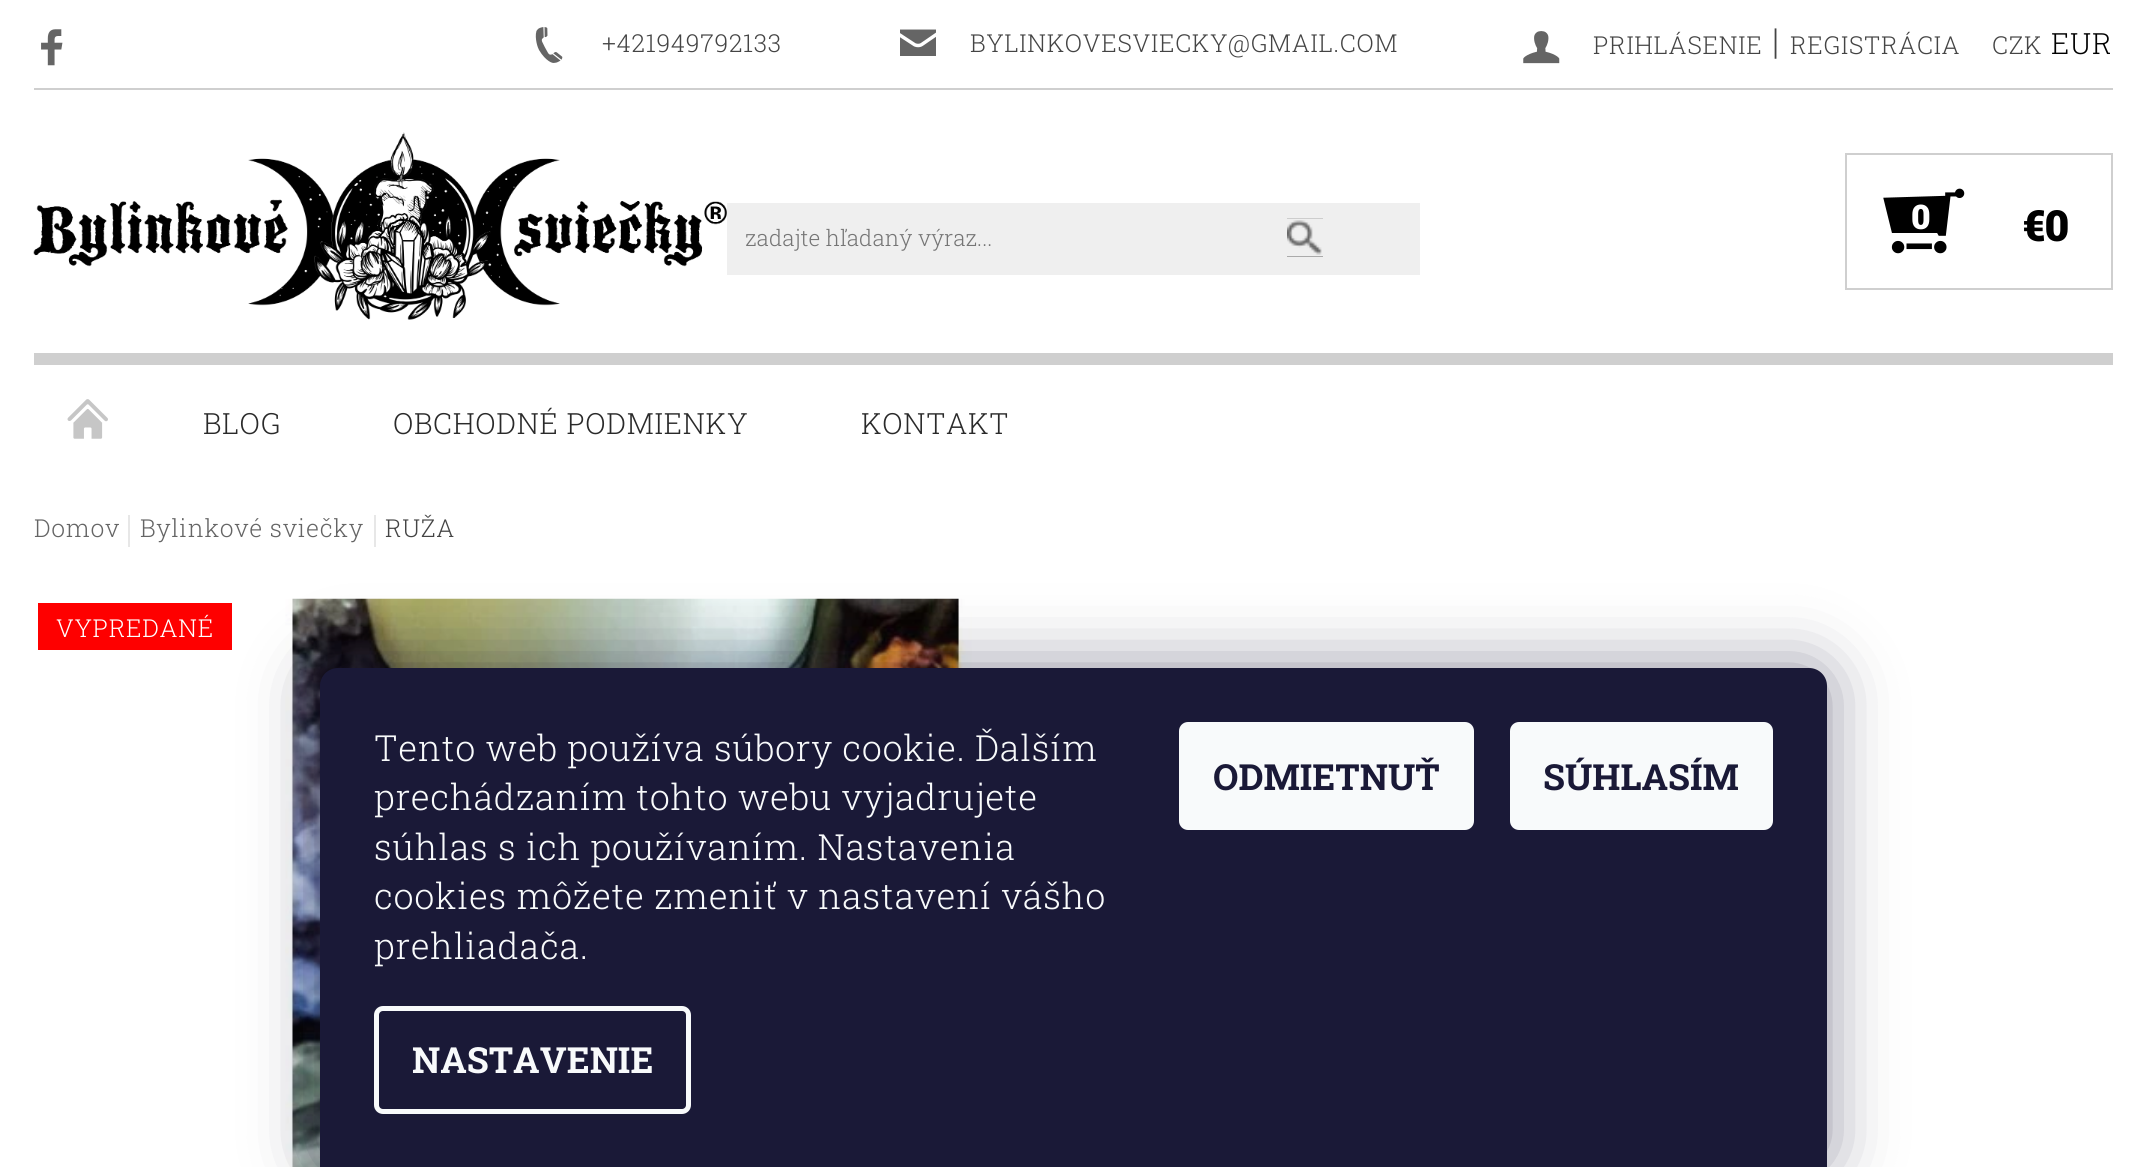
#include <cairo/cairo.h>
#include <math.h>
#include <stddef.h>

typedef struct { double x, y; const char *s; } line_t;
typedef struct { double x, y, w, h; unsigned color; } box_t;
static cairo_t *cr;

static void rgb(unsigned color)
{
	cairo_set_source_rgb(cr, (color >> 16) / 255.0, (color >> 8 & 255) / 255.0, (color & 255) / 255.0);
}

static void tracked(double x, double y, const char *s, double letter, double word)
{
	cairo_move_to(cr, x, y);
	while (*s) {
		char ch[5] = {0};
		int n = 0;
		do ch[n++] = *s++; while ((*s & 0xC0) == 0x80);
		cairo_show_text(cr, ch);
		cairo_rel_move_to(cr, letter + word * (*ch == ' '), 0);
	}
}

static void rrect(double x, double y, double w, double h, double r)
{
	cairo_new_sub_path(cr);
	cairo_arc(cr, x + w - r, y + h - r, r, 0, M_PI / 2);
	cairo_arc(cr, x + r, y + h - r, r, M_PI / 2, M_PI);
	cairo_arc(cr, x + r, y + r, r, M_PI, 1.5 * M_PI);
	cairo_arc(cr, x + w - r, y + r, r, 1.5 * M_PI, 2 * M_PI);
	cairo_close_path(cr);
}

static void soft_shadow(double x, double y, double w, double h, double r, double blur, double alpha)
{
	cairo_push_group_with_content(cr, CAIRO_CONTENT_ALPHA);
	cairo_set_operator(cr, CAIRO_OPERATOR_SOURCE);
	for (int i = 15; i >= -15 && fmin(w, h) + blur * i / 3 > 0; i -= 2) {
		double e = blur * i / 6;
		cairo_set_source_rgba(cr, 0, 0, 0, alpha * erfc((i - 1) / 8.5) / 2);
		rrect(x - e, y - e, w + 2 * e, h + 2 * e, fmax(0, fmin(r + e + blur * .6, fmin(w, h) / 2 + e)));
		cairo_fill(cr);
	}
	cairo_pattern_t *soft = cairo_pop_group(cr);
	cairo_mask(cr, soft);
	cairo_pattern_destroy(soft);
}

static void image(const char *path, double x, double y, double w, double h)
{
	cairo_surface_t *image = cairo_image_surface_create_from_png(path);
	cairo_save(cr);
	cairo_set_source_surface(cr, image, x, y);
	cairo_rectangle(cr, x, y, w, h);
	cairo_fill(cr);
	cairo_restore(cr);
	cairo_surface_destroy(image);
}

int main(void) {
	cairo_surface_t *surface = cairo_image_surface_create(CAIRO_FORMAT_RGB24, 2146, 1167);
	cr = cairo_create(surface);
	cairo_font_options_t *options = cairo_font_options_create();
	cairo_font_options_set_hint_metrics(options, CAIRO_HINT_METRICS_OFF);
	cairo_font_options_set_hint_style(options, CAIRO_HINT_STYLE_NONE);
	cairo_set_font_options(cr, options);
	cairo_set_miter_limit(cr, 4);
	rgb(0xffffff);
	cairo_paint(cr);
	rgb(0xcfcfcf);
	cairo_rectangle(cr, 34, 88, 2079, 2);
	cairo_fill(cr);
	image("img/1.png", 41, 29, 22, 37);
	image("img/2.png", 535, 27, 28, 36);
	image("img/3.png", 900, 29, 36, 27);
	image("img/4.png", 1523, 31, 37, 33);
	image("img/5.png", 33, 132, 694, 188);
	rgb(0xefefef);
	cairo_rectangle(cr, 727, 203, 693, 72);
	cairo_fill(cr);
	rgb(0x656565);
	cairo_rectangle(cr, 1287, 218, 36, 39);
	cairo_fill(cr);
	image("img/6.png", 1287, 218, 36, 39);
	cairo_rectangle(cr, 1846, 154, 266, 135);
	rgb(0xcfcfcf);
	cairo_stroke(cr);
	image("img/7.png", 1883, 188, 82, 66);
	cairo_rectangle(cr, 34, 353, 2079, 12);
	cairo_fill(cr);
	image("img/8.png", 67, 399, 41, 40);
	{
		static const box_t items[] = {
			{128, 515, 2, 32, 0xe7e7e7},
			{374, 515, 2, 32, 0xe7e7e7},
			{38, 603, 194, 47, 0xfe0000},
		};
		for (size_t i = 0; i < sizeof items / sizeof *items; i++) {
			rgb(items[i].color);
			cairo_rectangle(cr, items[i].x, items[i].y, items[i].w, items[i].h);
			cairo_fill(cr);
		}
	}
	image("img/9.png", 285, 598, 687, 569);
	rgb(0x1b1939);
	soft_shadow(320, 668, 1507, 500, 18, 34, 0.5);
	rgb(0x1a1937);
	cairo_new_path(cr);
	cairo_move_to(cr, 338, 668);
	cairo_line_to(cr, 1809, 668);
	cairo_curve_to(cr, 1819, 668, 1827, 676, 1827, 686);
	cairo_line_to(cr, 1827, 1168);
	cairo_line_to(cr, 320, 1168);
	cairo_line_to(cr, 320, 686);
	cairo_curve_to(cr, 320, 676, 328, 668, 338, 668);
	cairo_close_path(cr);
	cairo_fill(cr);
	rrect(376.5, 1008.5, 312, 103, 6.5);
	rgb(0xf8fafb);
	cairo_set_line_width(cr, 5);
	cairo_stroke(cr);
	rrect(1179, 722, 295, 108, 9);
	cairo_fill(cr);
	rrect(1510, 722, 263, 108, 9);
	cairo_fill(cr);
	cairo_select_font_face(cr, "Roboto Slab Light", CAIRO_FONT_SLANT_NORMAL, CAIRO_FONT_WEIGHT_NORMAL);
	cairo_set_font_size(cr, 24.75);
	rgb(0x444444);
	{
		static const line_t items[] = {
			{602, 52, "+421949792133"},
			{970, 52, "BYLINKOVESVIECKY@GMAIL.COM"},
			{1593, 54, "PRIHLÁSENIE"},
		};
		for (size_t i = 0; i < sizeof items / sizeof *items; i++) {
			tracked(items[i].x, items[i].y, items[i].s, 0.7, 0);
		}
	}
	cairo_set_font_size(cr, 36);
	tracked(1772, 54, "|", 0.7, 0);
	cairo_set_font_size(cr, 24.75);
	tracked(1790, 54, "REGISTRÁCIA", 0.7, 0);
	tracked(1992, 54, "CZK", 0.7, 0);
	cairo_set_font_size(cr, 29.25);
	rgb(0x000000);
	tracked(2051, 54, "EUR", 0.7, 0);
	cairo_set_font_size(cr, 22.5);
	rgb(0x757575);
	cairo_move_to(cr, 745, 246);
	cairo_show_text(cr, "zadajte hľadaný výraz...");
	cairo_select_font_face(cr, "Roboto Slab Black", CAIRO_FONT_SLANT_NORMAL, CAIRO_FONT_WEIGHT_NORMAL);
	cairo_set_font_size(cr, 34);
	rgb(0xffffff);
	tracked(1911, 229, "0", -1, 0);
	cairo_set_font_size(cr, 43);
	rgb(0x000000);
	tracked(2023, 241, "€0", -1, 0);
	cairo_select_font_face(cr, "Roboto Slab Light", CAIRO_FONT_SLANT_NORMAL, CAIRO_FONT_WEIGHT_NORMAL);
	cairo_set_font_size(cr, 29.25);
	rgb(0x2a2a2a);
	{
		static const line_t items[] = {
			{203, 434, "BLOG"},
			{393, 434, "OBCHODNÉ PODMIENKY"},
			{861, 434, "KONTAKT"},
		};
		for (size_t i = 0; i < sizeof items / sizeof *items; i++) {
			tracked(items[i].x, items[i].y, items[i].s, 0.7, 0);
		}
	}
	cairo_set_font_size(cr, 24.75);
	rgb(0x656565);
	tracked(34, 537, "Domov", 0.7, 0);
	tracked(140, 537, "Bylinkové sviečky", 0.7, 0);
	rgb(0x444444);
	tracked(385, 537, "RUŽA", 0.7, 0);
	rgb(0xffffff);
	tracked(56, 637, "VYPREDANÉ", 0.7, 0);
	cairo_set_font_size(cr, 36);
	rgb(0xf8fafb);
	{
		static const line_t items[] = {
			{374, 761, "Tento web používa súbory cookie. Ďalším"},
			{374, 810, "prechádzaním tohto webu vyjadrujete"},
			{374, 860, "súhlas s ich používaním. Nastavenia"},
			{374, 909, "cookies môžete zmeniť v nastavení vášho"},
			{374, 959, "prehliadača."},
		};
		for (size_t i = 0; i < sizeof items / sizeof *items; i++) {
			tracked(items[i].x, items[i].y, items[i].s, 0.7, 0);
		}
	}
	cairo_select_font_face(cr, "Roboto Slab", CAIRO_FONT_SLANT_NORMAL, CAIRO_FONT_WEIGHT_BOLD);
	cairo_move_to(cr, 412, 1073);
	cairo_show_text(cr, "NASTAVENIE");
	rgb(0x1a1937);
	cairo_move_to(cr, 1213, 790);
	cairo_show_text(cr, "ODMIETNUŤ");
	cairo_move_to(cr, 1543, 790);
	cairo_show_text(cr, "SÚHLASÍM");
	cairo_surface_write_to_png(surface, "page.png");
	cairo_font_options_destroy(options);
	cairo_destroy(cr);
	cairo_surface_destroy(surface);
	return 0;
}
